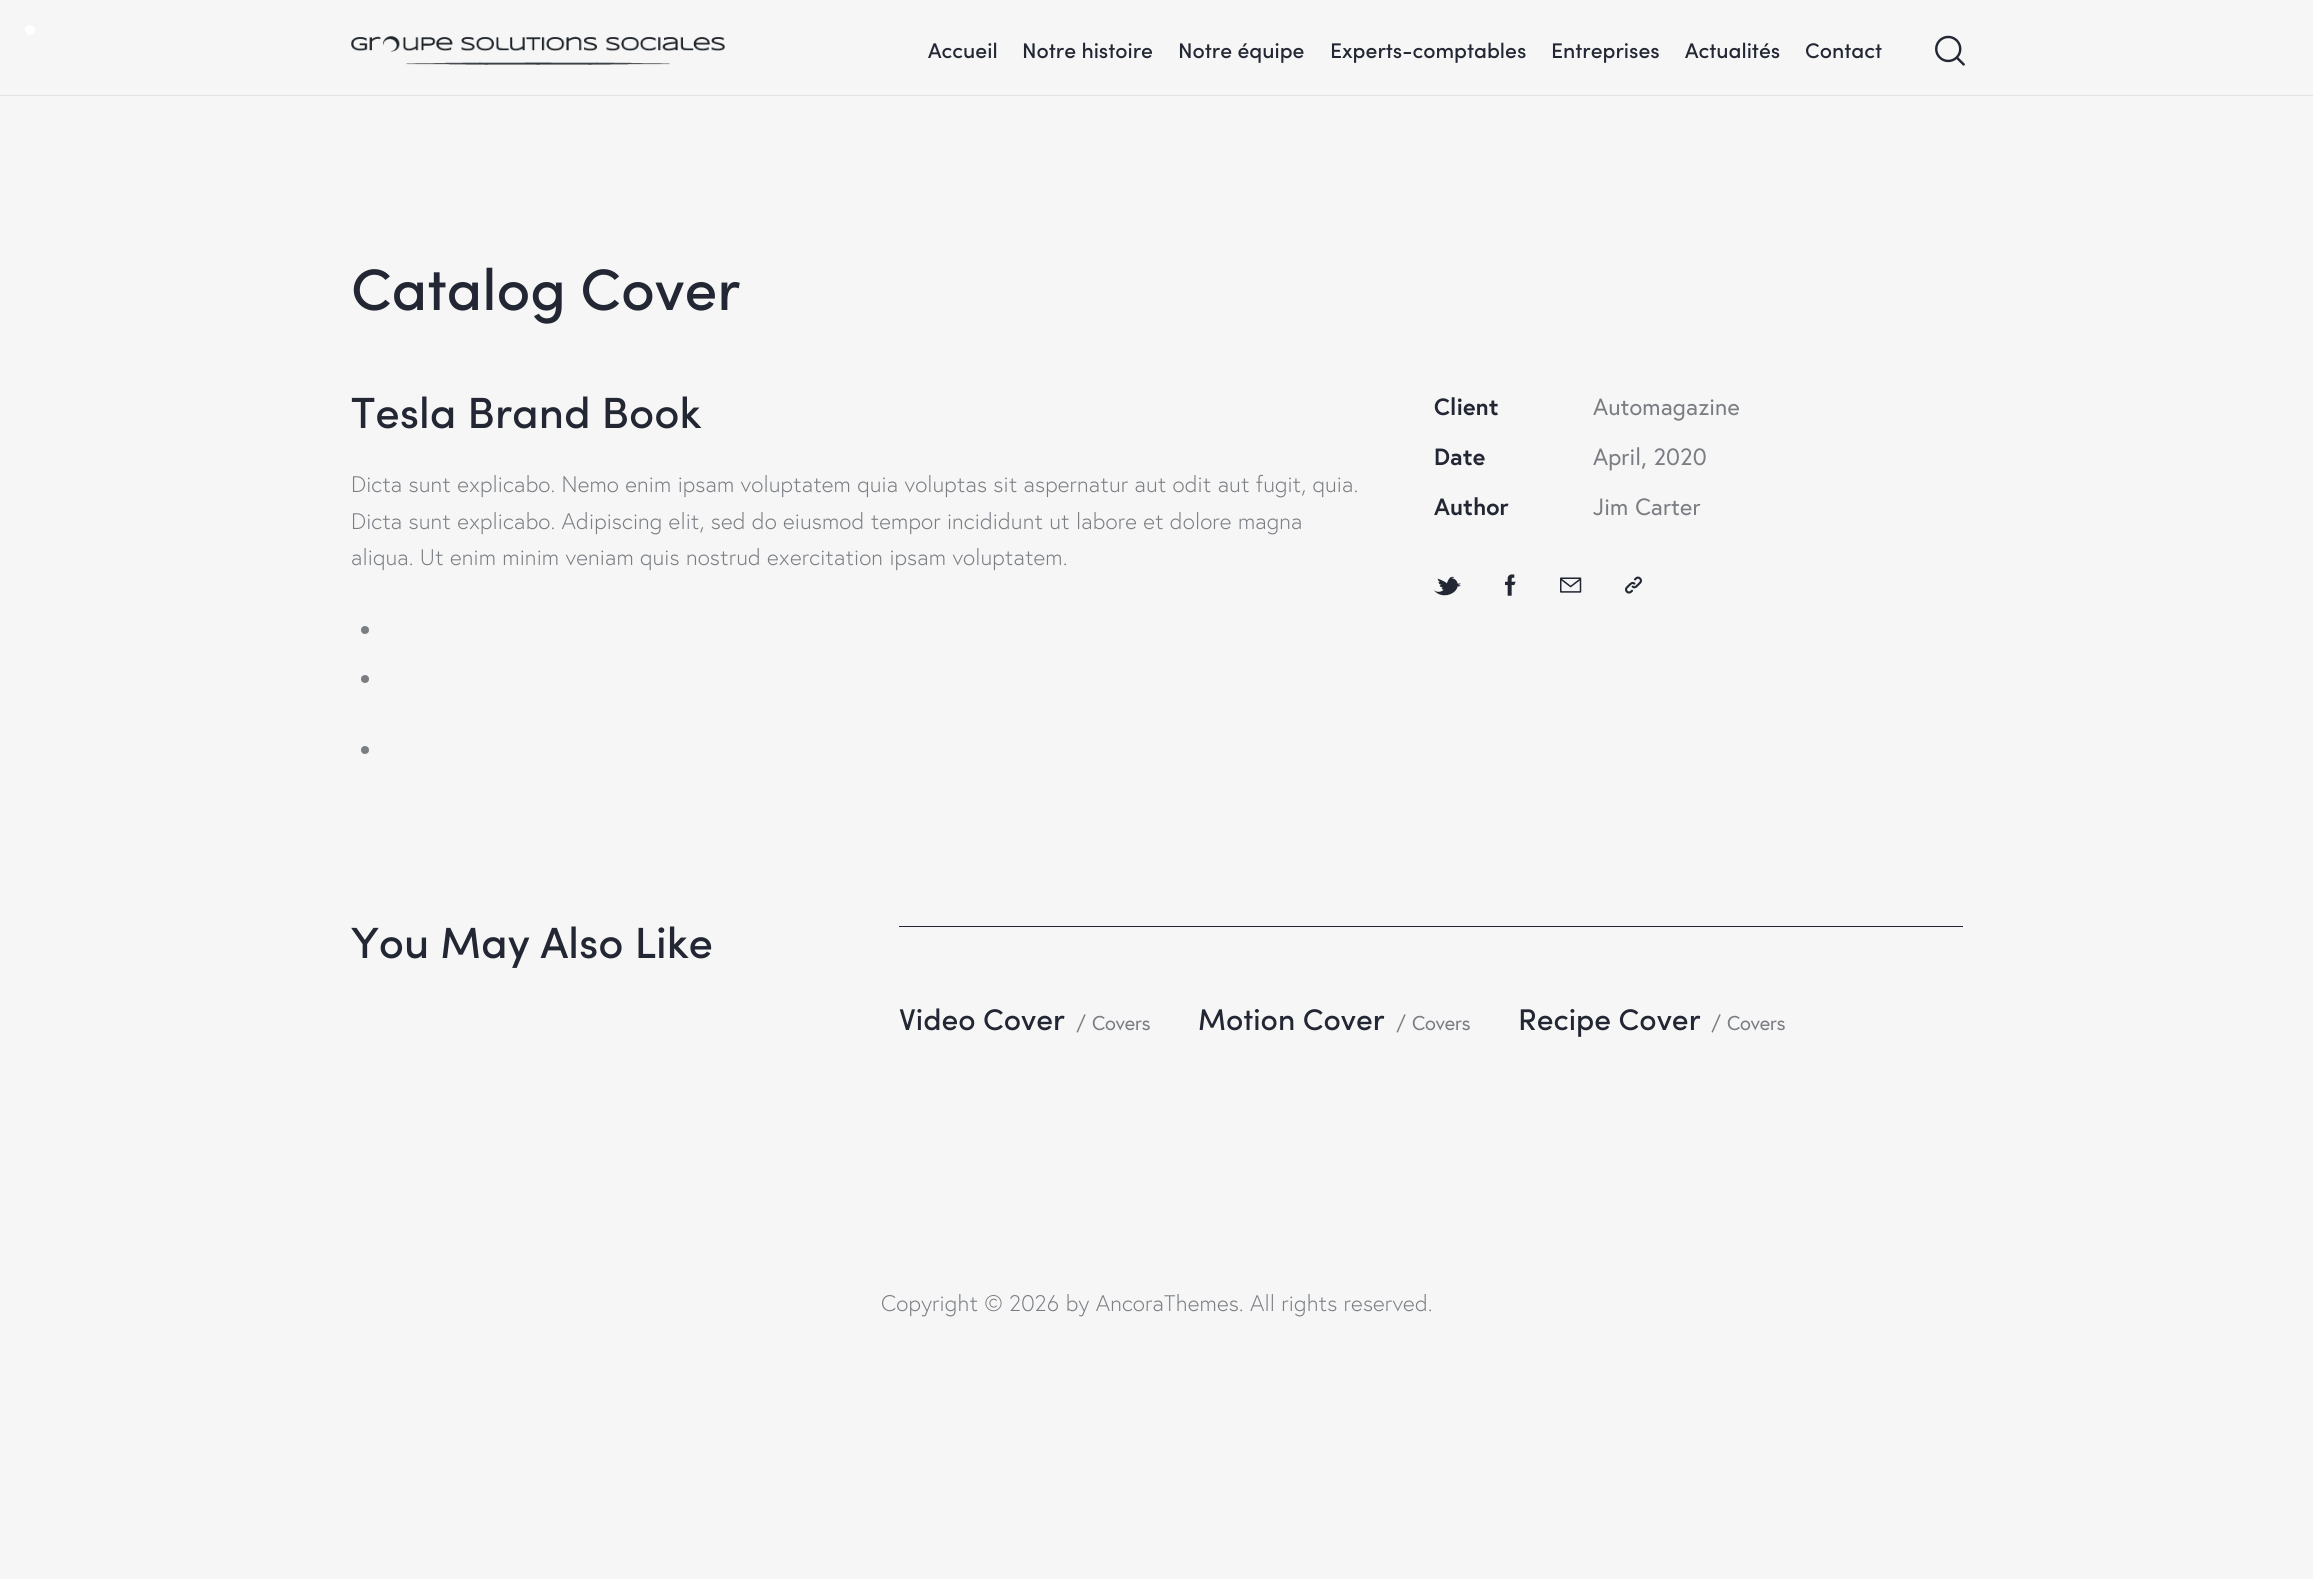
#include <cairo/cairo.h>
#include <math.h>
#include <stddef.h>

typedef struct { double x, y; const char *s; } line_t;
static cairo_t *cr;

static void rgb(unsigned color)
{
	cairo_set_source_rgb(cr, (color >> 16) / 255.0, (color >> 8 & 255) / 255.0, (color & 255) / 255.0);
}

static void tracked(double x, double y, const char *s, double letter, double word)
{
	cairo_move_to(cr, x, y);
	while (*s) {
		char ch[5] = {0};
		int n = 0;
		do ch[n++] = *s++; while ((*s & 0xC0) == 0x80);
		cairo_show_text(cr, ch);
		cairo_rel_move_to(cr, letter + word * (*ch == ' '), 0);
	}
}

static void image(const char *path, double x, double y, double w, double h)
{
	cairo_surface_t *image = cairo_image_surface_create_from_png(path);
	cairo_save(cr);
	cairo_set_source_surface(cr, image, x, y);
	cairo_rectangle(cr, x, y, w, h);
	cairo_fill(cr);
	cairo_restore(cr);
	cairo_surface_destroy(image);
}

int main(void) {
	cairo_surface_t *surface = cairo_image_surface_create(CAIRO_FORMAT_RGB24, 2313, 1579);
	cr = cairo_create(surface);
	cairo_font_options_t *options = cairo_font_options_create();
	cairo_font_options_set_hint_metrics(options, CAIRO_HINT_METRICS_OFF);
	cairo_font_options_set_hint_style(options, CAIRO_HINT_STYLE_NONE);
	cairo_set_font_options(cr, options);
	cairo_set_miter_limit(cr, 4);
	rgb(0xf6f6f6);
	cairo_paint(cr);
	rgb(0xffffff);
	cairo_arc(cr, 30, 30, 5, 0, 2 * M_PI);
	cairo_fill(cr);
	rgb(0xe2e2e2);
	cairo_rectangle(cr, 0, 95, 2313, 1);
	cairo_fill(cr);
	image("img/1.png", 351, 36, 374, 29);
	image("img/2.png", 1935, 35, 30, 31);
	rgb(0x7a7e83);
	cairo_arc(cr, 365, 630, 4, 0, 2 * M_PI);
	cairo_fill(cr);
	cairo_arc(cr, 365, 679, 4, 0, 2 * M_PI);
	cairo_fill(cr);
	cairo_arc(cr, 365, 750, 4, 0, 2 * M_PI);
	cairo_fill(cr);
	image("img/3.png", 1434, 576, 27, 20);
	image("img/4.png", 1505, 574, 11, 22);
	image("img/5.png", 1560, 577, 22, 16);
	image("img/6.png", 1625, 576, 17, 18);
	rgb(0x222733);
	cairo_rectangle(cr, 899, 926, 1064, 1);
	cairo_fill(cr);
	cairo_select_font_face(cr, "Sofia Medium", CAIRO_FONT_SLANT_NORMAL, CAIRO_FONT_WEIGHT_NORMAL);
	cairo_set_font_size(cr, 21.25);
	{
		static const line_t items[] = {
			{928, 58, "Accueil"},
			{1022, 58, "Notre histoire"},
			{1178, 58, "Notre équipe"},
			{1330, 58, "Experts-comptables"},
			{1551, 58, "Entreprises"},
			{1685, 58, "Actualités"},
			{1805, 58, "Contact"},
		};
		for (size_t i = 0; i < sizeof items / sizeof *items; i++) {
			cairo_move_to(cr, items[i].x, items[i].y);
			cairo_show_text(cr, items[i].s);
		}
	}
	cairo_set_font_size(cr, 58.75);
	tracked(351, 310, "Catalog Cover", -0.1, 0);
	cairo_set_font_size(cr, 43.75);
	cairo_move_to(cr, 351, 428);
	cairo_show_text(cr, "Tesla Brand Book");
	cairo_select_font_face(cr, "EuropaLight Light", CAIRO_FONT_SLANT_NORMAL, CAIRO_FONT_WEIGHT_NORMAL);
	cairo_set_font_size(cr, 22.5);
	rgb(0x7a7e83);
	{
		static const line_t items[] = {
			{351, 492, "Dicta sunt explicabo. Nemo enim ipsam voluptatem quia voluptas sit aspernatur aut odit aut fugit, quia."},
			{351, 529, "Dicta sunt explicabo. Adipiscing elit, sed do eiusmod tempor incididunt ut labore et dolore magna"},
			{351, 565, "aliqua. Ut enim minim veniam quis nostrud exercitation ipsam voluptatem."},
		};
		for (size_t i = 0; i < sizeof items / sizeof *items; i++) {
			tracked(items[i].x, items[i].y, items[i].s, 0.12, 0);
		}
	}
	cairo_select_font_face(cr, "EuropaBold", CAIRO_FONT_SLANT_NORMAL, CAIRO_FONT_WEIGHT_BOLD);
	cairo_set_font_size(cr, 23.5);
	rgb(0x222733);
	tracked(1434, 415, "Client", 0.12, 0);
	cairo_select_font_face(cr, "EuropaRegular", CAIRO_FONT_SLANT_NORMAL, CAIRO_FONT_WEIGHT_NORMAL);
	rgb(0x7a7e83);
	tracked(1593, 415, "Automagazine", 0.12, 0);
	cairo_select_font_face(cr, "EuropaBold", CAIRO_FONT_SLANT_NORMAL, CAIRO_FONT_WEIGHT_BOLD);
	rgb(0x222733);
	tracked(1434, 465, "Date", 0.12, 0);
	cairo_select_font_face(cr, "EuropaRegular", CAIRO_FONT_SLANT_NORMAL, CAIRO_FONT_WEIGHT_NORMAL);
	rgb(0x7a7e83);
	tracked(1593, 465, "April, 2020", 0.12, 0);
	cairo_select_font_face(cr, "EuropaBold", CAIRO_FONT_SLANT_NORMAL, CAIRO_FONT_WEIGHT_BOLD);
	rgb(0x222733);
	tracked(1434, 515, "Author", 0.12, 0);
	cairo_select_font_face(cr, "EuropaRegular", CAIRO_FONT_SLANT_NORMAL, CAIRO_FONT_WEIGHT_NORMAL);
	rgb(0x7a7e83);
	tracked(1593, 515, "Jim Carter", 0.12, 0);
	cairo_select_font_face(cr, "Sofia Medium", CAIRO_FONT_SLANT_NORMAL, CAIRO_FONT_WEIGHT_NORMAL);
	cairo_set_font_size(cr, 43.75);
	rgb(0x222733);
	cairo_move_to(cr, 351, 958);
	cairo_show_text(cr, "You May Also Like");
	cairo_set_font_size(cr, 30);
	cairo_move_to(cr, 899, 1030);
	cairo_show_text(cr, "Video Cover");
	cairo_select_font_face(cr, "EuropaRegular", CAIRO_FONT_SLANT_NORMAL, CAIRO_FONT_WEIGHT_NORMAL);
	cairo_set_font_size(cr, 20);
	rgb(0x7a7e83);
	tracked(1076, 1030, "/", -0.25, 0);
	tracked(1092, 1030, "Covers", -0.25, 0);
	cairo_select_font_face(cr, "Sofia Medium", CAIRO_FONT_SLANT_NORMAL, CAIRO_FONT_WEIGHT_NORMAL);
	cairo_set_font_size(cr, 30);
	rgb(0x222733);
	cairo_move_to(cr, 1198, 1030);
	cairo_show_text(cr, "Motion Cover");
	cairo_select_font_face(cr, "EuropaRegular", CAIRO_FONT_SLANT_NORMAL, CAIRO_FONT_WEIGHT_NORMAL);
	cairo_set_font_size(cr, 20);
	rgb(0x7a7e83);
	tracked(1396, 1030, "/", -0.25, 0);
	tracked(1412, 1030, "Covers", -0.25, 0);
	cairo_select_font_face(cr, "Sofia Medium", CAIRO_FONT_SLANT_NORMAL, CAIRO_FONT_WEIGHT_NORMAL);
	cairo_set_font_size(cr, 30);
	rgb(0x222733);
	cairo_move_to(cr, 1518, 1030);
	cairo_show_text(cr, "Recipe Cover");
	cairo_select_font_face(cr, "EuropaRegular", CAIRO_FONT_SLANT_NORMAL, CAIRO_FONT_WEIGHT_NORMAL);
	cairo_set_font_size(cr, 20);
	rgb(0x7a7e83);
	tracked(1711, 1030, "/", -0.25, 0);
	tracked(1727, 1030, "Covers", -0.25, 0);
	cairo_select_font_face(cr, "EuropaLight Light", CAIRO_FONT_SLANT_NORMAL, CAIRO_FONT_WEIGHT_NORMAL);
	cairo_set_font_size(cr, 22.5);
	tracked(881, 1311, "Copyright © 2026 by AncoraThemes. All rights reserved.", 0.12, 0);
	cairo_surface_write_to_png(surface, "page.png");
	cairo_font_options_destroy(options);
	cairo_destroy(cr);
	cairo_surface_destroy(surface);
	return 0;
}
